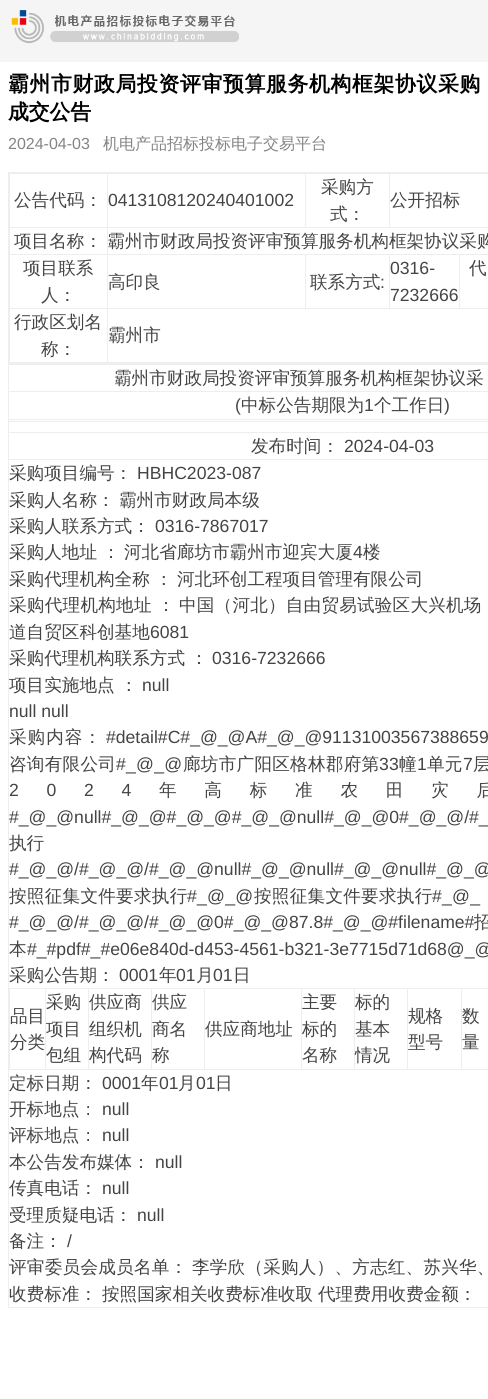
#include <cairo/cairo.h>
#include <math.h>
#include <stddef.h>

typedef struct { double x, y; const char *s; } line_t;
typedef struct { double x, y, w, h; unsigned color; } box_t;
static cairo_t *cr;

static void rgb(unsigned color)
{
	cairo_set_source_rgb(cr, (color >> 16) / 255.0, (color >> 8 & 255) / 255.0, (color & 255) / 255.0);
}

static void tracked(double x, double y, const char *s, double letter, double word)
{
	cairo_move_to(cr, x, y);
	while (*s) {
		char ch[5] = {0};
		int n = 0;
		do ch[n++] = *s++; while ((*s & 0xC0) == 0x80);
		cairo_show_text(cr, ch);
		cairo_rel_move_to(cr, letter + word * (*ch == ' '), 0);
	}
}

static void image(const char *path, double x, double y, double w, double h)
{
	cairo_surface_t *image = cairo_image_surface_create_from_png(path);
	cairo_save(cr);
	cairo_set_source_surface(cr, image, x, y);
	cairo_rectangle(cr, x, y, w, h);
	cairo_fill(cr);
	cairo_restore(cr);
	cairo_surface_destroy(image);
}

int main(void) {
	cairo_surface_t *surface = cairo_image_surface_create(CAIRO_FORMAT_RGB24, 488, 1399);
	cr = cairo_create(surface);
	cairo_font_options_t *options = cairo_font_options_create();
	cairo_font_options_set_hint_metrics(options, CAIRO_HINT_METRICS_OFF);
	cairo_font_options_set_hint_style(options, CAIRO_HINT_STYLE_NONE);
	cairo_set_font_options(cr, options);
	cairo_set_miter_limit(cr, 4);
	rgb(0xffffff);
	cairo_paint(cr);
	rgb(0xf5f5f5);
	cairo_rectangle(cr, 0, 0, 488, 62);
	cairo_fill(cr);
	image("img/1.png", 11, 10, 228, 34);
	{
		static const box_t items[] = {
			{8, 172, 480, 1, 0xeeeeee},
			{8, 363, 480, 2, 0xeeeeee},
			{8, 172, 1, 192, 0xeeeeee},
			{389, 173, 99, 1, 0xeeeeee},
			{107, 227, 381, 1, 0xeeeeee},
			{389, 173, 1, 55, 0xeeeeee},
			{305, 173, 85, 1, 0xeeeeee},
			{305, 173, 1, 55, 0xeeeeee},
			{107, 173, 199, 1, 0xeeeeee},
			{459, 254, 29, 1, 0xeeeeee},
			{107, 308, 381, 1, 0xeeeeee},
			{459, 254, 1, 55, 0xeeeeee},
			{389, 254, 71, 1, 0xeeeeee},
			{389, 254, 1, 55, 0xeeeeee},
			{305, 254, 85, 1, 0xeeeeee},
			{305, 254, 1, 55, 0xeeeeee},
			{107, 254, 199, 1, 0xeeeeee},
			{107, 362, 381, 1, 0xeeeeee},
			{107, 308, 1, 55, 0xeeeeee},
			{9, 308, 99, 1, 0xeeeeee},
			{107, 254, 1, 55, 0xeeeeee},
			{9, 254, 99, 1, 0xeeeeee},
			{107, 227, 1, 28, 0xeeeeee},
			{9, 227, 99, 1, 0xeeeeee},
			{107, 173, 1, 55, 0xeeeeee},
			{9, 173, 99, 1, 0xeeeeee},
			{9, 362, 99, 1, 0xeeeeee},
			{9, 308, 1, 55, 0xeeeeee},
			{9, 254, 1, 55, 0xeeeeee},
			{9, 227, 1, 28, 0xeeeeee},
			{9, 173, 1, 55, 0xeeeeee},
			{8, 391, 480, 1, 0xeeeeee},
			{8, 419, 480, 1, 0xeeeeee},
			{8, 421, 480, 1, 0xeeeeee},
			{8, 432, 480, 1, 0xeeeeee},
			{8, 459, 480, 1, 0xeeeeee},
			{8, 1307, 480, 1, 0xeeeeee},
			{8, 459, 1, 849, 0xeeeeee},
			{8, 432, 1, 28, 0xeeeeee},
			{8, 421, 1, 12, 0xeeeeee},
			{8, 419, 1, 3, 0xeeeeee},
			{8, 391, 1, 29, 0xeeeeee},
			{8, 364, 1, 28, 0xeeeeee},
			{461, 988, 27, 1, 0xeeeeee},
			{461, 1069, 27, 1, 0xeeeeee},
			{461, 988, 1, 82, 0xeeeeee},
			{407, 988, 55, 1, 0xeeeeee},
			{407, 1069, 55, 1, 0xeeeeee},
			{407, 988, 1, 82, 0xeeeeee},
			{354, 988, 54, 1, 0xeeeeee},
			{354, 1069, 54, 1, 0xeeeeee},
			{354, 988, 1, 82, 0xeeeeee},
			{301, 988, 54, 1, 0xeeeeee},
			{301, 1069, 54, 1, 0xeeeeee},
			{301, 988, 1, 82, 0xeeeeee},
			{204, 988, 98, 1, 0xeeeeee},
			{204, 1069, 98, 1, 0xeeeeee},
			{204, 988, 1, 82, 0xeeeeee},
			{151, 988, 54, 1, 0xeeeeee},
			{151, 1069, 54, 1, 0xeeeeee},
			{151, 988, 1, 82, 0xeeeeee},
			{88, 988, 64, 1, 0xeeeeee},
			{88, 1069, 64, 1, 0xeeeeee},
			{88, 988, 1, 82, 0xeeeeee},
			{45, 988, 44, 1, 0xeeeeee},
			{45, 1069, 44, 1, 0xeeeeee},
			{45, 988, 1, 82, 0xeeeeee},
			{9, 988, 37, 1, 0xeeeeee},
			{9, 1069, 37, 1, 0xeeeeee},
			{9, 988, 1, 82, 0xeeeeee},
		};
		for (size_t i = 0; i < sizeof items / sizeof *items; i++) {
			rgb(items[i].color);
			cairo_rectangle(cr, items[i].x, items[i].y, items[i].w, items[i].h);
			cairo_fill(cr);
		}
	}
	cairo_select_font_face(cr, "WenQuanYi Zen Hei", CAIRO_FONT_SLANT_NORMAL, CAIRO_FONT_WEIGHT_BOLD);
	cairo_set_font_size(cr, 20.8);
	rgb(0x000000);
	tracked(8, 91, "霸州市财政局投资评审预算服务机构框架协议采购", 0.7, 0);
	cairo_move_to(cr, 8, 119);
	cairo_show_text(cr, "成交公告");
	cairo_select_font_face(cr, "Liberation Sans", CAIRO_FONT_SLANT_NORMAL, CAIRO_FONT_WEIGHT_NORMAL);
	cairo_set_font_size(cr, 16);
	rgb(0x848484);
	cairo_move_to(cr, 8, 149);
	cairo_show_text(cr, "2024-04-03");
	cairo_select_font_face(cr, "WenQuanYi Zen Hei Medium", CAIRO_FONT_SLANT_NORMAL, CAIRO_FONT_WEIGHT_NORMAL);
	cairo_move_to(cr, 103, 149);
	cairo_show_text(cr, "机电产品招标投标电子交易平台");
	cairo_set_font_size(cr, 17.6);
	rgb(0x444444);
	cairo_move_to(cr, 14, 206);
	cairo_show_text(cr, "公告代码：");
	cairo_select_font_face(cr, "Liberation Sans", CAIRO_FONT_SLANT_NORMAL, CAIRO_FONT_WEIGHT_NORMAL);
	cairo_move_to(cr, 108, 206);
	cairo_show_text(cr, "0413108120240401002");
	cairo_select_font_face(cr, "WenQuanYi Zen Hei Medium", CAIRO_FONT_SLANT_NORMAL, CAIRO_FONT_WEIGHT_NORMAL);
	{
		static const line_t items[] = {
			{321, 193, "采购方"},
			{330, 220, "式："},
			{390, 206, "公开招标"},
			{14, 247, "项目名称： 霸州市财政局投资评审预算服务机构框架协议采购"},
			{23, 274, "项目联系"},
			{41, 301, "人："},
			{108, 288, "高印良"},
			{310, 288, "联系方式"},
		};
		for (size_t i = 0; i < sizeof items / sizeof *items; i++) {
			cairo_move_to(cr, items[i].x, items[i].y);
			cairo_show_text(cr, items[i].s);
		}
	}
	cairo_select_font_face(cr, "Liberation Sans", CAIRO_FONT_SLANT_NORMAL, CAIRO_FONT_WEIGHT_NORMAL);
	{
		static const line_t items[] = {
			{380, 288, ":"},
			{390, 274, "0316-"},
			{390, 301, "7232666"},
		};
		for (size_t i = 0; i < sizeof items / sizeof *items; i++) {
			cairo_move_to(cr, items[i].x, items[i].y);
			cairo_show_text(cr, items[i].s);
		}
	}
	cairo_select_font_face(cr, "WenQuanYi Zen Hei Medium", CAIRO_FONT_SLANT_NORMAL, CAIRO_FONT_WEIGHT_NORMAL);
	{
		static const line_t items[] = {
			{469, 274, "代"},
			{14, 328, "行政区划名"},
			{41, 355, "称："},
			{108, 341, "霸州市"},
			{114, 384, "霸州市财政局投资评审预算服务机构框架协议采"},
		};
		for (size_t i = 0; i < sizeof items / sizeof *items; i++) {
			cairo_move_to(cr, items[i].x, items[i].y);
			cairo_show_text(cr, items[i].s);
		}
	}
	cairo_select_font_face(cr, "Liberation Sans", CAIRO_FONT_SLANT_NORMAL, CAIRO_FONT_WEIGHT_NORMAL);
	cairo_move_to(cr, 235, 411);
	cairo_show_text(cr, "(");
	cairo_select_font_face(cr, "WenQuanYi Zen Hei Medium", CAIRO_FONT_SLANT_NORMAL, CAIRO_FONT_WEIGHT_NORMAL);
	cairo_move_to(cr, 241, 411);
	cairo_show_text(cr, "中标公告期限为");
	cairo_select_font_face(cr, "Liberation Sans", CAIRO_FONT_SLANT_NORMAL, CAIRO_FONT_WEIGHT_NORMAL);
	cairo_move_to(cr, 364, 411);
	cairo_show_text(cr, "1");
	cairo_select_font_face(cr, "WenQuanYi Zen Hei Medium", CAIRO_FONT_SLANT_NORMAL, CAIRO_FONT_WEIGHT_NORMAL);
	cairo_move_to(cr, 374, 411);
	cairo_show_text(cr, "个工作日");
	cairo_select_font_face(cr, "Liberation Sans", CAIRO_FONT_SLANT_NORMAL, CAIRO_FONT_WEIGHT_NORMAL);
	cairo_move_to(cr, 444, 411);
	cairo_show_text(cr, ")");
	cairo_select_font_face(cr, "WenQuanYi Zen Hei Medium", CAIRO_FONT_SLANT_NORMAL, CAIRO_FONT_WEIGHT_NORMAL);
	cairo_move_to(cr, 251, 452);
	cairo_show_text(cr, "发布时间：");
	cairo_select_font_face(cr, "Liberation Sans", CAIRO_FONT_SLANT_NORMAL, CAIRO_FONT_WEIGHT_NORMAL);
	cairo_move_to(cr, 344, 452);
	cairo_show_text(cr, "2024-04-03");
	cairo_select_font_face(cr, "WenQuanYi Zen Hei Medium", CAIRO_FONT_SLANT_NORMAL, CAIRO_FONT_WEIGHT_NORMAL);
	cairo_move_to(cr, 9, 479);
	cairo_show_text(cr, "采购项目编号：");
	cairo_select_font_face(cr, "Liberation Sans", CAIRO_FONT_SLANT_NORMAL, CAIRO_FONT_WEIGHT_NORMAL);
	cairo_move_to(cr, 137, 479);
	cairo_show_text(cr, "HBHC2023-087");
	cairo_select_font_face(cr, "WenQuanYi Zen Hei Medium", CAIRO_FONT_SLANT_NORMAL, CAIRO_FONT_WEIGHT_NORMAL);
	{
		static const line_t items[] = {
			{9, 506, "采购人名称："},
			{119, 506, "霸州市财政局本级"},
			{9, 532, "采购人联系方式："},
		};
		for (size_t i = 0; i < sizeof items / sizeof *items; i++) {
			cairo_move_to(cr, items[i].x, items[i].y);
			cairo_show_text(cr, items[i].s);
		}
	}
	cairo_select_font_face(cr, "Liberation Sans", CAIRO_FONT_SLANT_NORMAL, CAIRO_FONT_WEIGHT_NORMAL);
	cairo_move_to(cr, 155, 532);
	cairo_show_text(cr, "0316-7867017");
	cairo_select_font_face(cr, "WenQuanYi Zen Hei Medium", CAIRO_FONT_SLANT_NORMAL, CAIRO_FONT_WEIGHT_NORMAL);
	cairo_move_to(cr, 9, 558);
	cairo_show_text(cr, "采购人地址 ：");
	cairo_move_to(cr, 124, 558);
	cairo_show_text(cr, "河北省廊坊市霸州市迎宾大厦");
	cairo_select_font_face(cr, "Liberation Sans", CAIRO_FONT_SLANT_NORMAL, CAIRO_FONT_WEIGHT_NORMAL);
	cairo_move_to(cr, 353, 558);
	cairo_show_text(cr, "4");
	cairo_select_font_face(cr, "WenQuanYi Zen Hei Medium", CAIRO_FONT_SLANT_NORMAL, CAIRO_FONT_WEIGHT_NORMAL);
	{
		static const line_t items[] = {
			{363, 558, "楼"},
			{9, 585, "采购代理机构全称 ："},
			{177, 585, "河北环创工程项目管理有限公司"},
		};
		for (size_t i = 0; i < sizeof items / sizeof *items; i++) {
			cairo_move_to(cr, items[i].x, items[i].y);
			cairo_show_text(cr, items[i].s);
		}
	}
	tracked(9, 611, "采购代理机构地址 ：", 0.25, 0);
	tracked(179, 611, "中国（河北）自由贸易试验区大兴机场", 0.2, 0);
	cairo_move_to(cr, 9, 638);
	cairo_show_text(cr, "道自贸区科创基地");
	cairo_select_font_face(cr, "Liberation Sans", CAIRO_FONT_SLANT_NORMAL, CAIRO_FONT_WEIGHT_NORMAL);
	cairo_move_to(cr, 150, 638);
	cairo_show_text(cr, "6081");
	cairo_select_font_face(cr, "WenQuanYi Zen Hei Medium", CAIRO_FONT_SLANT_NORMAL, CAIRO_FONT_WEIGHT_NORMAL);
	cairo_move_to(cr, 9, 664);
	cairo_show_text(cr, "采购代理机构联系方式 ：");
	cairo_select_font_face(cr, "Liberation Sans", CAIRO_FONT_SLANT_NORMAL, CAIRO_FONT_WEIGHT_NORMAL);
	cairo_move_to(cr, 212, 664);
	cairo_show_text(cr, "0316-7232666");
	cairo_select_font_face(cr, "WenQuanYi Zen Hei Medium", CAIRO_FONT_SLANT_NORMAL, CAIRO_FONT_WEIGHT_NORMAL);
	cairo_move_to(cr, 9, 691);
	cairo_show_text(cr, "项目实施地点 ：");
	cairo_select_font_face(cr, "Liberation Sans", CAIRO_FONT_SLANT_NORMAL, CAIRO_FONT_WEIGHT_NORMAL);
	cairo_move_to(cr, 142, 691);
	cairo_show_text(cr, "null");
	cairo_move_to(cr, 9, 717);
	cairo_show_text(cr, "null null");
	cairo_select_font_face(cr, "WenQuanYi Zen Hei Medium", CAIRO_FONT_SLANT_NORMAL, CAIRO_FONT_WEIGHT_NORMAL);
	tracked(9, 743, "采购内容：", 1, 0);
	cairo_select_font_face(cr, "Liberation Sans", CAIRO_FONT_SLANT_NORMAL, CAIRO_FONT_WEIGHT_NORMAL);
	cairo_move_to(cr, 106, 743);
	cairo_show_text(cr, "#detail#C#_@_@A#_@_@91131003567388659");
	cairo_select_font_face(cr, "WenQuanYi Zen Hei Medium", CAIRO_FONT_SLANT_NORMAL, CAIRO_FONT_WEIGHT_NORMAL);
	tracked(9, 770, "咨询有限公司", 0.25, 0);
	cairo_select_font_face(cr, "Liberation Sans", CAIRO_FONT_SLANT_NORMAL, CAIRO_FONT_WEIGHT_NORMAL);
	tracked(116, 770, "#_@_@", 0.25, 0);
	cairo_select_font_face(cr, "WenQuanYi Zen Hei Medium", CAIRO_FONT_SLANT_NORMAL, CAIRO_FONT_WEIGHT_NORMAL);
	tracked(183, 770, "廊坊市广阳区格林郡府第", 0.25, 0);
	cairo_select_font_face(cr, "Liberation Sans", CAIRO_FONT_SLANT_NORMAL, CAIRO_FONT_WEIGHT_NORMAL);
	tracked(379, 770, "33", 0.25, 0);
	cairo_select_font_face(cr, "WenQuanYi Zen Hei Medium", CAIRO_FONT_SLANT_NORMAL, CAIRO_FONT_WEIGHT_NORMAL);
	tracked(399, 770, "幢", 0.25, 0);
	cairo_select_font_face(cr, "Liberation Sans", CAIRO_FONT_SLANT_NORMAL, CAIRO_FONT_WEIGHT_NORMAL);
	tracked(417, 770, "1", 0.25, 0);
	cairo_select_font_face(cr, "WenQuanYi Zen Hei Medium", CAIRO_FONT_SLANT_NORMAL, CAIRO_FONT_WEIGHT_NORMAL);
	tracked(427, 770, "单元", 0.25, 0);
	cairo_select_font_face(cr, "Liberation Sans", CAIRO_FONT_SLANT_NORMAL, CAIRO_FONT_WEIGHT_NORMAL);
	tracked(463, 770, "7", 0.25, 0);
	cairo_select_font_face(cr, "WenQuanYi Zen Hei Medium", CAIRO_FONT_SLANT_NORMAL, CAIRO_FONT_WEIGHT_NORMAL);
	tracked(473, 770, "层", 0.25, 0);
	cairo_select_font_face(cr, "Liberation Sans", CAIRO_FONT_SLANT_NORMAL, CAIRO_FONT_WEIGHT_NORMAL);
	tracked(9, 796, "2024", 27.75, 0);
	cairo_select_font_face(cr, "WenQuanYi Zen Hei Medium", CAIRO_FONT_SLANT_NORMAL, CAIRO_FONT_WEIGHT_NORMAL);
	tracked(159, 796, "年高标准农田灾后", 27.75, 0);
	cairo_select_font_face(cr, "Liberation Sans", CAIRO_FONT_SLANT_NORMAL, CAIRO_FONT_WEIGHT_NORMAL);
	cairo_move_to(cr, 9, 823);
	cairo_show_text(cr, "#_@_@null#_@_@#_@_@#_@_@null#_@_@0#_@_@/#_");
	cairo_select_font_face(cr, "WenQuanYi Zen Hei Medium", CAIRO_FONT_SLANT_NORMAL, CAIRO_FONT_WEIGHT_NORMAL);
	cairo_move_to(cr, 9, 849);
	cairo_show_text(cr, "执行");
	cairo_select_font_face(cr, "Liberation Sans", CAIRO_FONT_SLANT_NORMAL, CAIRO_FONT_WEIGHT_NORMAL);
	cairo_move_to(cr, 9, 875);
	cairo_show_text(cr, "#_@_@/#_@_@/#_@_@null#_@_@null#_@_@null#_@_@");
	cairo_select_font_face(cr, "WenQuanYi Zen Hei Medium", CAIRO_FONT_SLANT_NORMAL, CAIRO_FONT_WEIGHT_NORMAL);
	tracked(9, 902, "按照征集文件要求执行", 0.25, 0);
	cairo_select_font_face(cr, "Liberation Sans", CAIRO_FONT_SLANT_NORMAL, CAIRO_FONT_WEIGHT_NORMAL);
	tracked(187, 902, "#_@_@", 0.25, 0);
	cairo_select_font_face(cr, "WenQuanYi Zen Hei Medium", CAIRO_FONT_SLANT_NORMAL, CAIRO_FONT_WEIGHT_NORMAL);
	tracked(254, 902, "按照征集文件要求执行", 0.25, 0);
	cairo_select_font_face(cr, "Liberation Sans", CAIRO_FONT_SLANT_NORMAL, CAIRO_FONT_WEIGHT_NORMAL);
	tracked(432, 902, "#_@_", 0.25, 0);
	cairo_move_to(cr, 9, 928);
	cairo_show_text(cr, "#_@_@/#_@_@/#_@_@0#_@_@87.8#_@_@#filename#");
	cairo_select_font_face(cr, "WenQuanYi Zen Hei Medium", CAIRO_FONT_SLANT_NORMAL, CAIRO_FONT_WEIGHT_NORMAL);
	cairo_move_to(cr, 474, 928);
	cairo_show_text(cr, "招");
	cairo_move_to(cr, 9, 955);
	cairo_show_text(cr, "本");
	cairo_select_font_face(cr, "Liberation Sans", CAIRO_FONT_SLANT_NORMAL, CAIRO_FONT_WEIGHT_NORMAL);
	cairo_move_to(cr, 27, 955);
	cairo_show_text(cr, "#_#pdf#_#e06e840d-d453-4561-b321-3e7715d71d68@_@");
	cairo_select_font_face(cr, "WenQuanYi Zen Hei Medium", CAIRO_FONT_SLANT_NORMAL, CAIRO_FONT_WEIGHT_NORMAL);
	cairo_move_to(cr, 9, 981);
	cairo_show_text(cr, "采购公告期：");
	cairo_select_font_face(cr, "Liberation Sans", CAIRO_FONT_SLANT_NORMAL, CAIRO_FONT_WEIGHT_NORMAL);
	cairo_move_to(cr, 119, 981);
	cairo_show_text(cr, "0001");
	cairo_select_font_face(cr, "WenQuanYi Zen Hei Medium", CAIRO_FONT_SLANT_NORMAL, CAIRO_FONT_WEIGHT_NORMAL);
	cairo_move_to(cr, 159, 981);
	cairo_show_text(cr, "年");
	cairo_select_font_face(cr, "Liberation Sans", CAIRO_FONT_SLANT_NORMAL, CAIRO_FONT_WEIGHT_NORMAL);
	cairo_move_to(cr, 176, 981);
	cairo_show_text(cr, "01");
	cairo_select_font_face(cr, "WenQuanYi Zen Hei Medium", CAIRO_FONT_SLANT_NORMAL, CAIRO_FONT_WEIGHT_NORMAL);
	cairo_move_to(cr, 196, 981);
	cairo_show_text(cr, "月");
	cairo_select_font_face(cr, "Liberation Sans", CAIRO_FONT_SLANT_NORMAL, CAIRO_FONT_WEIGHT_NORMAL);
	cairo_move_to(cr, 213, 981);
	cairo_show_text(cr, "01");
	cairo_select_font_face(cr, "WenQuanYi Zen Hei Medium", CAIRO_FONT_SLANT_NORMAL, CAIRO_FONT_WEIGHT_NORMAL);
	{
		static const line_t items[] = {
			{233, 981, "日"},
			{10, 1022, "品目"},
			{10, 1048, "分类"},
			{46, 1008, "采购"},
			{46, 1035, "项目"},
			{46, 1061, "包组"},
			{89, 1008, "供应商"},
			{89, 1035, "组织机"},
			{89, 1061, "构代码"},
			{152, 1008, "供应"},
			{152, 1035, "商名"},
			{152, 1061, "称"},
			{205, 1035, "供应商地址"},
			{302, 1008, "主要"},
			{302, 1035, "标的"},
			{302, 1061, "名称"},
			{355, 1008, "标的"},
			{355, 1035, "基本"},
			{355, 1061, "情况"},
			{408, 1022, "规格"},
			{408, 1048, "型号"},
			{462, 1022, "数"},
			{462, 1048, "量"},
			{9, 1089, "定标日期："},
		};
		for (size_t i = 0; i < sizeof items / sizeof *items; i++) {
			cairo_move_to(cr, items[i].x, items[i].y);
			cairo_show_text(cr, items[i].s);
		}
	}
	cairo_select_font_face(cr, "Liberation Sans", CAIRO_FONT_SLANT_NORMAL, CAIRO_FONT_WEIGHT_NORMAL);
	cairo_move_to(cr, 102, 1089);
	cairo_show_text(cr, "0001");
	cairo_select_font_face(cr, "WenQuanYi Zen Hei Medium", CAIRO_FONT_SLANT_NORMAL, CAIRO_FONT_WEIGHT_NORMAL);
	cairo_move_to(cr, 141, 1089);
	cairo_show_text(cr, "年");
	cairo_select_font_face(cr, "Liberation Sans", CAIRO_FONT_SLANT_NORMAL, CAIRO_FONT_WEIGHT_NORMAL);
	cairo_move_to(cr, 159, 1089);
	cairo_show_text(cr, "01");
	cairo_select_font_face(cr, "WenQuanYi Zen Hei Medium", CAIRO_FONT_SLANT_NORMAL, CAIRO_FONT_WEIGHT_NORMAL);
	cairo_move_to(cr, 178, 1089);
	cairo_show_text(cr, "月");
	cairo_select_font_face(cr, "Liberation Sans", CAIRO_FONT_SLANT_NORMAL, CAIRO_FONT_WEIGHT_NORMAL);
	cairo_move_to(cr, 196, 1089);
	cairo_show_text(cr, "01");
	cairo_select_font_face(cr, "WenQuanYi Zen Hei Medium", CAIRO_FONT_SLANT_NORMAL, CAIRO_FONT_WEIGHT_NORMAL);
	cairo_move_to(cr, 215, 1089);
	cairo_show_text(cr, "日");
	cairo_move_to(cr, 9, 1115);
	cairo_show_text(cr, "开标地点：");
	cairo_select_font_face(cr, "Liberation Sans", CAIRO_FONT_SLANT_NORMAL, CAIRO_FONT_WEIGHT_NORMAL);
	cairo_move_to(cr, 102, 1115);
	cairo_show_text(cr, "null");
	cairo_select_font_face(cr, "WenQuanYi Zen Hei Medium", CAIRO_FONT_SLANT_NORMAL, CAIRO_FONT_WEIGHT_NORMAL);
	cairo_move_to(cr, 9, 1141);
	cairo_show_text(cr, "评标地点：");
	cairo_select_font_face(cr, "Liberation Sans", CAIRO_FONT_SLANT_NORMAL, CAIRO_FONT_WEIGHT_NORMAL);
	cairo_move_to(cr, 102, 1141);
	cairo_show_text(cr, "null");
	cairo_select_font_face(cr, "WenQuanYi Zen Hei Medium", CAIRO_FONT_SLANT_NORMAL, CAIRO_FONT_WEIGHT_NORMAL);
	cairo_move_to(cr, 9, 1168);
	cairo_show_text(cr, "本公告发布媒体：");
	cairo_select_font_face(cr, "Liberation Sans", CAIRO_FONT_SLANT_NORMAL, CAIRO_FONT_WEIGHT_NORMAL);
	cairo_move_to(cr, 155, 1168);
	cairo_show_text(cr, "null");
	cairo_select_font_face(cr, "WenQuanYi Zen Hei Medium", CAIRO_FONT_SLANT_NORMAL, CAIRO_FONT_WEIGHT_NORMAL);
	cairo_move_to(cr, 9, 1194);
	cairo_show_text(cr, "传真电话：");
	cairo_select_font_face(cr, "Liberation Sans", CAIRO_FONT_SLANT_NORMAL, CAIRO_FONT_WEIGHT_NORMAL);
	cairo_move_to(cr, 102, 1194);
	cairo_show_text(cr, "null");
	cairo_select_font_face(cr, "WenQuanYi Zen Hei Medium", CAIRO_FONT_SLANT_NORMAL, CAIRO_FONT_WEIGHT_NORMAL);
	cairo_move_to(cr, 9, 1221);
	cairo_show_text(cr, "受理质疑电话：");
	cairo_select_font_face(cr, "Liberation Sans", CAIRO_FONT_SLANT_NORMAL, CAIRO_FONT_WEIGHT_NORMAL);
	cairo_move_to(cr, 137, 1221);
	cairo_show_text(cr, "null");
	cairo_select_font_face(cr, "WenQuanYi Zen Hei Medium", CAIRO_FONT_SLANT_NORMAL, CAIRO_FONT_WEIGHT_NORMAL);
	cairo_move_to(cr, 9, 1247);
	cairo_show_text(cr, "备注：");
	cairo_select_font_face(cr, "Liberation Sans", CAIRO_FONT_SLANT_NORMAL, CAIRO_FONT_WEIGHT_NORMAL);
	cairo_move_to(cr, 67, 1247);
	cairo_show_text(cr, "/");
	cairo_select_font_face(cr, "WenQuanYi Zen Hei Medium", CAIRO_FONT_SLANT_NORMAL, CAIRO_FONT_WEIGHT_NORMAL);
	tracked(9, 1273, "评审委员会成员名单：", 0.25, 0);
	tracked(192, 1273, "李学欣（采购人）、方志红、苏兴华、", 0.2, 0);
	{
		static const line_t items[] = {
			{9, 1300, "收费标准："},
			{102, 1300, "按照国家相关收费标准收取"},
			{318, 1300, "代理费用收费金额："},
		};
		for (size_t i = 0; i < sizeof items / sizeof *items; i++) {
			cairo_move_to(cr, items[i].x, items[i].y);
			cairo_show_text(cr, items[i].s);
		}
	}
	cairo_surface_write_to_png(surface, "page.png");
	cairo_font_options_destroy(options);
	cairo_destroy(cr);
	cairo_surface_destroy(surface);
	return 0;
}
